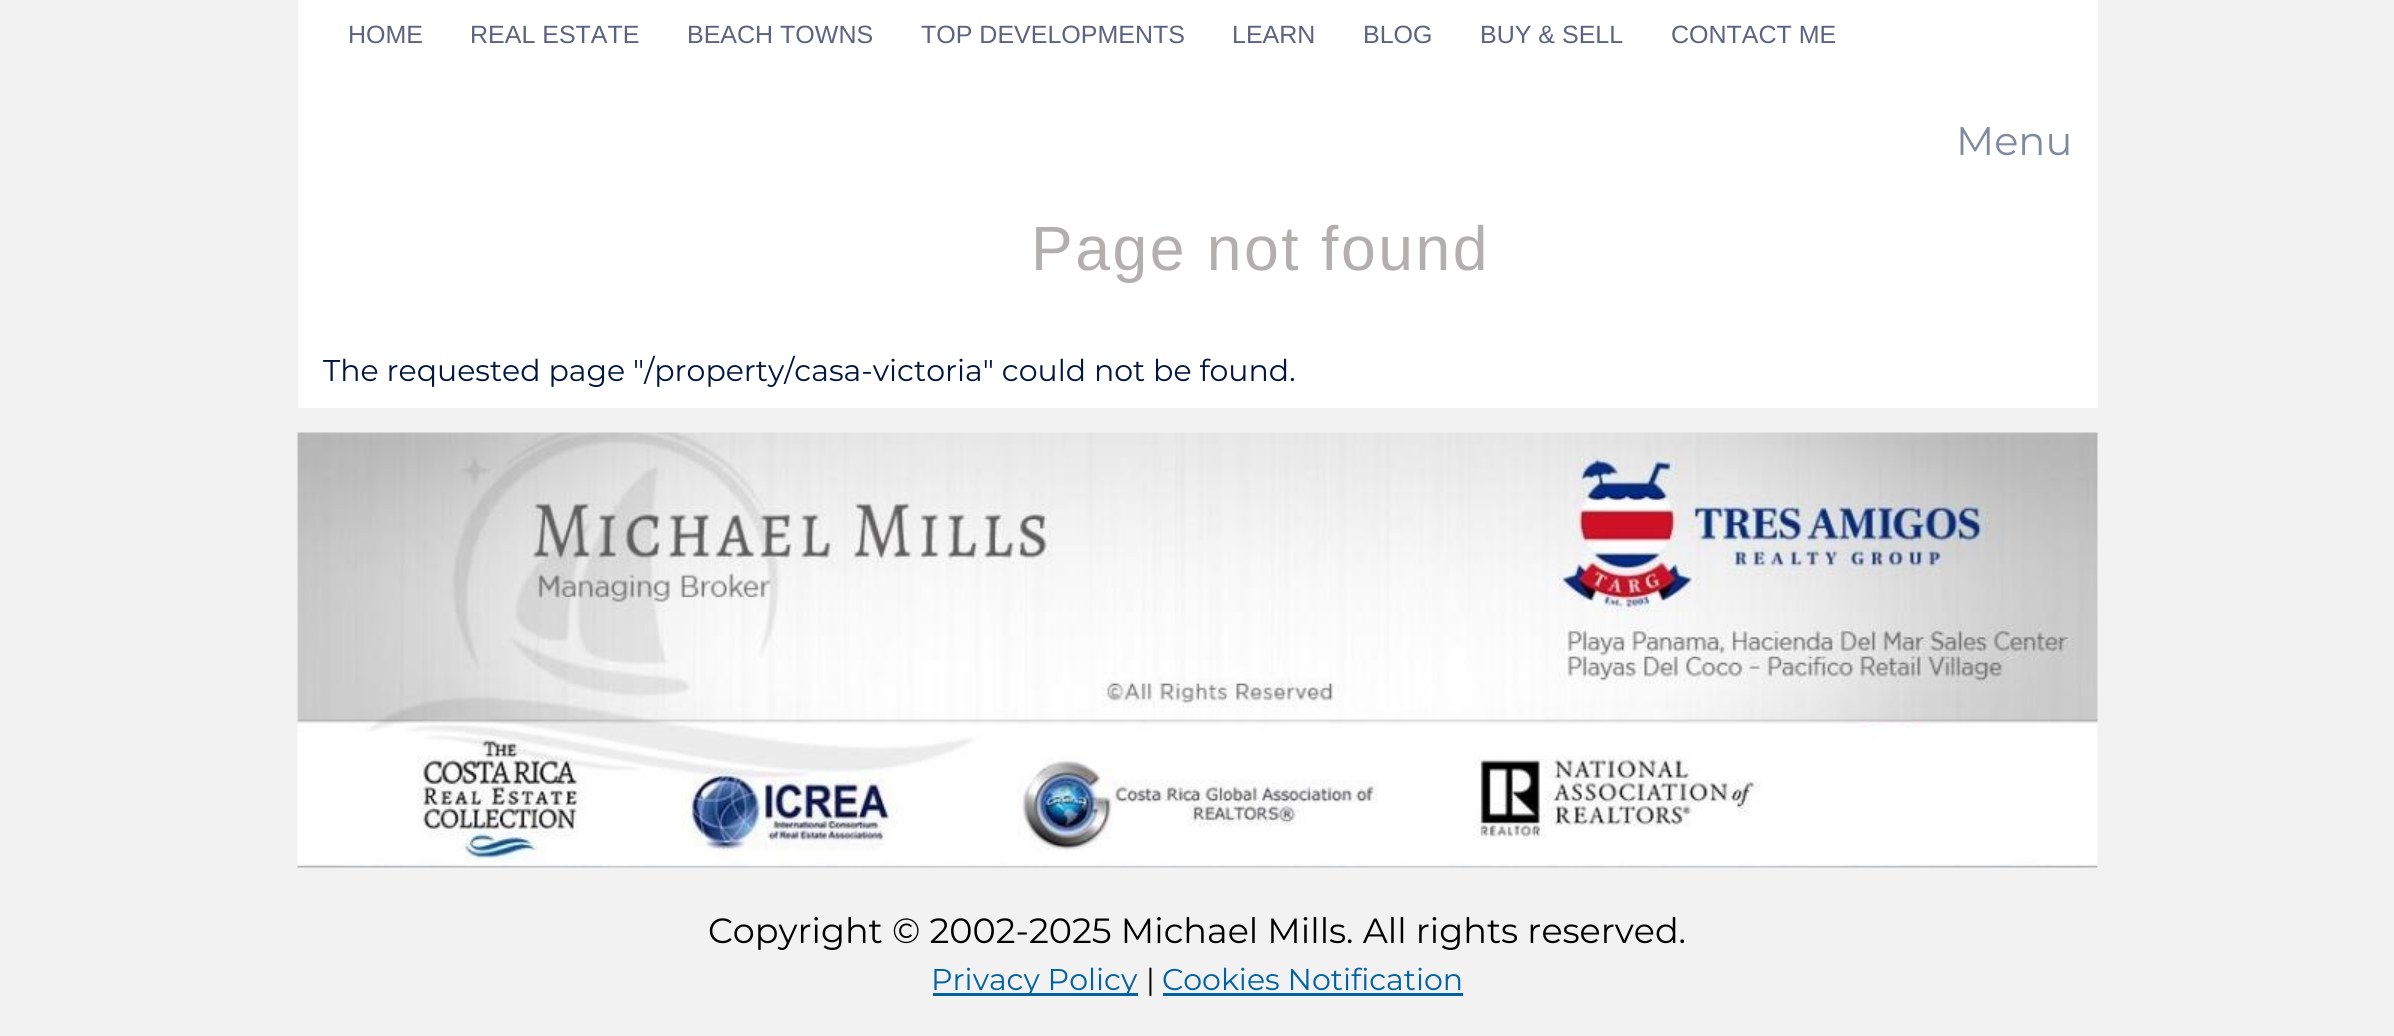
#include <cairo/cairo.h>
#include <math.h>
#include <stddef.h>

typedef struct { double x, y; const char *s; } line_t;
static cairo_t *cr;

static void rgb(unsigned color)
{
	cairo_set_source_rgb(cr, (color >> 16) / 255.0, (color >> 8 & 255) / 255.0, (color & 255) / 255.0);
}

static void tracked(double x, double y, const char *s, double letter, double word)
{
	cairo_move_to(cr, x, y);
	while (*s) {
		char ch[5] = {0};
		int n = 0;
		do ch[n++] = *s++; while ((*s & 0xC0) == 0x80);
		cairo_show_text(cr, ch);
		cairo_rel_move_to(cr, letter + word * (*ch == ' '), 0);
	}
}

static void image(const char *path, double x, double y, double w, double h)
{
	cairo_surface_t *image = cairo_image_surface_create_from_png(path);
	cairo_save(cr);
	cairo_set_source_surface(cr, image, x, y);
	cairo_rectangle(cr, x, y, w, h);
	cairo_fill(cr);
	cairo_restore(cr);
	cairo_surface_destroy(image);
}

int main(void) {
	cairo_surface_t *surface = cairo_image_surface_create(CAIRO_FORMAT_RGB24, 2394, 1036);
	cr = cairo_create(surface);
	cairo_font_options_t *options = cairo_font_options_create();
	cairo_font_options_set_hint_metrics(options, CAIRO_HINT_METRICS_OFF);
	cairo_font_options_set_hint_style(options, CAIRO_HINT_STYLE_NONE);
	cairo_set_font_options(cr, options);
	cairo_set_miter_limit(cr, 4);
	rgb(0xf2f2f2);
	cairo_paint(cr);
	rgb(0xffffff);
	cairo_rectangle(cr, 298, 0, 1800, 408);
	cairo_fill(cr);
	image("img/1.png", 297, 432, 1801, 436);
	rgb(0x0062a0);
	cairo_rectangle(cr, 933, 993, 205, 3);
	cairo_fill(cr);
	cairo_rectangle(cr, 1163, 993, 300, 3);
	cairo_fill(cr);
	cairo_select_font_face(cr, "Liberation Sans", CAIRO_FONT_SLANT_NORMAL, CAIRO_FONT_WEIGHT_NORMAL);
	cairo_set_font_size(cr, 25);
	rgb(0x5c6281);
	{
		static const line_t items[] = {
			{348, 43, "HOME"},
			{470, 43, "REAL ESTATE"},
			{687, 43, "BEACH TOWNS"},
			{921, 43, "TOP DEVELOPMENTS"},
			{1232, 43, "LEARN"},
			{1363, 43, "BLOG"},
			{1480, 43, "BUY & SELL"},
			{1671, 43, "CONTACT ME"},
		};
		for (size_t i = 0; i < sizeof items / sizeof *items; i++) {
			cairo_move_to(cr, items[i].x, items[i].y);
			cairo_show_text(cr, items[i].s);
		}
	}
	cairo_select_font_face(cr, "Montserrat", CAIRO_FONT_SLANT_NORMAL, CAIRO_FONT_WEIGHT_NORMAL);
	cairo_set_font_size(cr, 40);
	rgb(0x808a9f);
	cairo_move_to(cr, 1956, 155);
	cairo_show_text(cr, "Menu");
	cairo_select_font_face(cr, "Liberation Sans", CAIRO_FONT_SLANT_NORMAL, CAIRO_FONT_WEIGHT_NORMAL);
	cairo_set_font_size(cr, 62.5);
	rgb(0xb3afaf);
	tracked(1031, 270, "Page not found", 2.5, 0);
	cairo_select_font_face(cr, "Montserrat", CAIRO_FONT_SLANT_NORMAL, CAIRO_FONT_WEIGHT_NORMAL);
	cairo_set_font_size(cr, 30);
	rgb(0x011640);
	cairo_move_to(cr, 323, 381);
	cairo_show_text(cr, "The requested page \"/property/casa-victoria\" could not be found.");
	cairo_set_font_size(cr, 35);
	rgb(0x000000);
	cairo_move_to(cr, 708, 943);
	cairo_show_text(cr, "Copyright © 2002-2025 Michael Mills. All rights reserved.");
	cairo_set_font_size(cr, 30);
	rgb(0x0062a0);
	cairo_move_to(cr, 931, 990);
	cairo_show_text(cr, "Privacy Policy");
	rgb(0x000000);
	cairo_move_to(cr, 1146, 990);
	cairo_show_text(cr, "|");
	rgb(0x0062a0);
	cairo_move_to(cr, 1162, 990);
	cairo_show_text(cr, "Cookies Notification");
	cairo_surface_write_to_png(surface, "page.png");
	cairo_font_options_destroy(options);
	cairo_destroy(cr);
	cairo_surface_destroy(surface);
	return 0;
}
